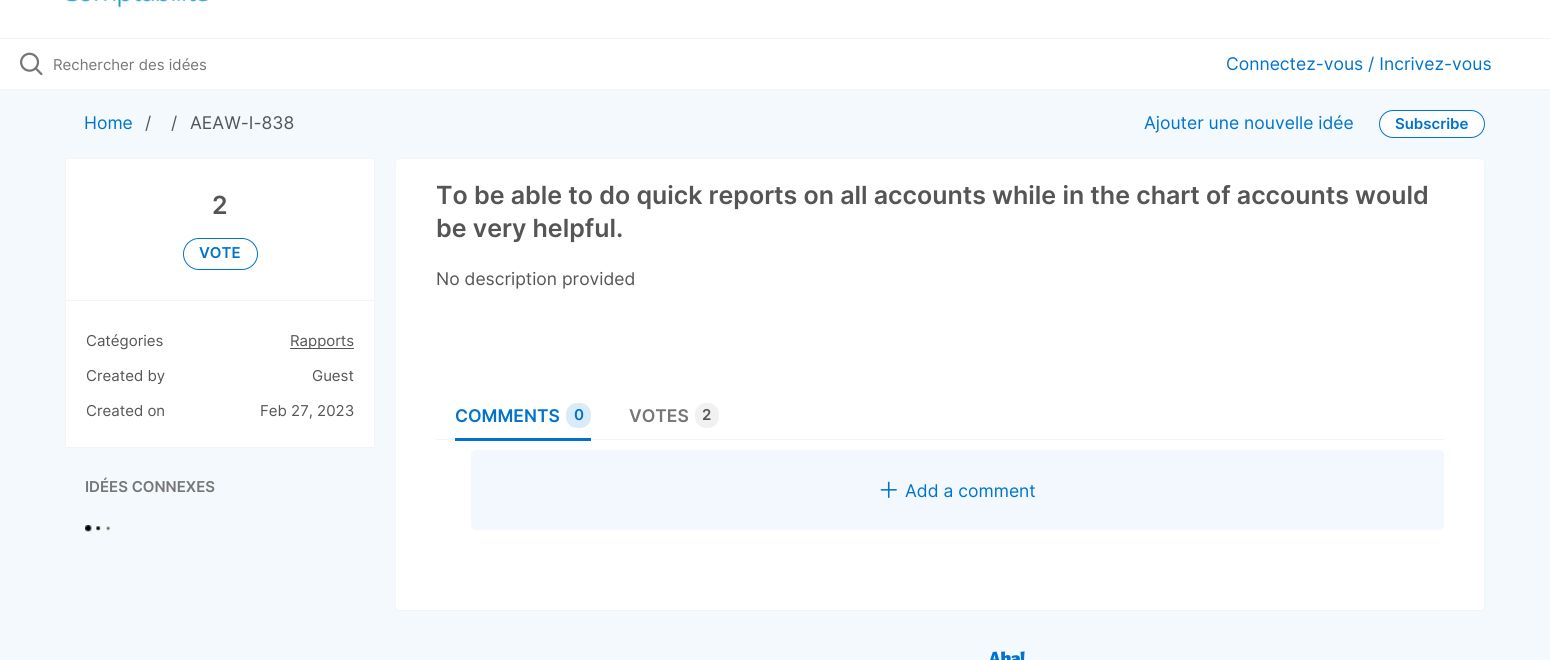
#include <cairo/cairo.h>
#include <math.h>
#include <stddef.h>

typedef struct { double x, y; const char *s; } line_t;
static cairo_t *cr;

static void rgb(unsigned color)
{
	cairo_set_source_rgb(cr, (color >> 16) / 255.0, (color >> 8 & 255) / 255.0, (color & 255) / 255.0);
}

static void rrect(double x, double y, double w, double h, double r)
{
	cairo_new_sub_path(cr);
	cairo_arc(cr, x + w - r, y + h - r, r, 0, M_PI / 2);
	cairo_arc(cr, x + r, y + h - r, r, M_PI / 2, M_PI);
	cairo_arc(cr, x + r, y + r, r, M_PI, 1.5 * M_PI);
	cairo_arc(cr, x + w - r, y + r, r, 1.5 * M_PI, 2 * M_PI);
	cairo_close_path(cr);
}

static void image(const char *path, double x, double y, double w, double h)
{
	cairo_surface_t *image = cairo_image_surface_create_from_png(path);
	cairo_save(cr);
	cairo_set_source_surface(cr, image, x, y);
	cairo_rectangle(cr, x, y, w, h);
	cairo_fill(cr);
	cairo_restore(cr);
	cairo_surface_destroy(image);
}

int main(void) {
	cairo_surface_t *surface = cairo_image_surface_create(CAIRO_FORMAT_RGB24, 1550, 660);
	cr = cairo_create(surface);
	cairo_font_options_t *options = cairo_font_options_create();
	cairo_font_options_set_hint_metrics(options, CAIRO_HINT_METRICS_OFF);
	cairo_font_options_set_hint_style(options, CAIRO_HINT_STYLE_NONE);
	cairo_set_font_options(cr, options);
	cairo_set_miter_limit(cr, 4);
	rgb(0xf3f9fd);
	cairo_paint(cr);
	rgb(0xffffff);
	cairo_rectangle(cr, 0, 0, 1550, 38);
	cairo_fill(cr);
	rgb(0xf4f4f4);
	cairo_rectangle(cr, 0, 38, 1550, 1);
	cairo_fill(cr);
	image("img/1.png", 66, 0, 142, 8);
	rgb(0xffffff);
	cairo_rectangle(cr, 0, 39, 1550, 50);
	cairo_fill(cr);
	rgb(0xf4f4f4);
	cairo_rectangle(cr, 0, 89, 1550, 1);
	cairo_fill(cr);
	image("img/2.png", 20, 52, 23, 24);
	rgb(0xffffff);
	rrect(1379.5, 110.5, 105, 27, 13.5);
	cairo_fill_preserve(cr);
	rgb(0x0073cf);
	cairo_set_line_width(cr, 1);
	cairo_stroke(cr);
	rgb(0xffffff);
	cairo_rectangle(cr, 65.5, 158.5, 309, 289);
	cairo_fill_preserve(cr);
	rgb(0xf4f4f4);
	cairo_stroke(cr);
	rrect(183.5, 238.5, 74, 31, 15.5);
	rgb(0x0073cf);
	cairo_stroke(cr);
	rgb(0xf4f4f4);
	cairo_rectangle(cr, 66, 300, 308, 1);
	cairo_fill(cr);
	rgb(0x555555);
	cairo_rectangle(cr, 290, 348, 64, 1);
	cairo_fill(cr);
	image("img/3.png", 85, 525, 26, 7);
	rgb(0xffffff);
	rrect(395.5, 158.5, 1089, 452, 4.5);
	cairo_fill_preserve(cr);
	rgb(0xf4f4f4);
	cairo_stroke(cr);
	cairo_rectangle(cr, 436, 439, 1008, 1);
	cairo_fill(cr);
	rgb(0x0073cf);
	cairo_rectangle(cr, 455, 438, 136, 3);
	cairo_fill(cr);
	rgb(0xd9eaf8);
	rrect(566, 403, 25, 25, 11);
	cairo_fill(cr);
	rgb(0xf1f1f1);
	rrect(695, 403, 24, 25, 11);
	cairo_fill(cr);
	rgb(0xf2f8fd);
	rrect(471, 450, 973, 80, 5);
	cairo_fill(cr);
	image("img/4.png", 880, 481, 17, 17);
	image("img/5.png", 990, 651, 35, 9);
	cairo_select_font_face(cr, "Inter", CAIRO_FONT_SLANT_NORMAL, CAIRO_FONT_WEIGHT_NORMAL);
	cairo_set_font_size(cr, 15);
	rgb(0x767676);
	cairo_move_to(cr, 53, 70);
	cairo_show_text(cr, "Rechercher des idées");
	cairo_set_font_size(cr, 17.5);
	rgb(0x0073cf);
	cairo_move_to(cr, 1226, 70);
	cairo_show_text(cr, "Connectez-vous / Incrivez-vous");
	cairo_move_to(cr, 84, 129);
	cairo_show_text(cr, "Home");
	rgb(0x555555);
	{
		static const line_t items[] = {
			{145, 129, "/"},
			{171, 129, "/"},
			{190, 129, "AEAW-I-838"},
		};
		for (size_t i = 0; i < sizeof items / sizeof *items; i++) {
			cairo_move_to(cr, items[i].x, items[i].y);
			cairo_show_text(cr, items[i].s);
		}
	}
	rgb(0x0073cf);
	cairo_move_to(cr, 1144, 129);
	cairo_show_text(cr, "Ajouter une nouvelle idée");
	cairo_select_font_face(cr, "Inter SemiBold", CAIRO_FONT_SLANT_NORMAL, CAIRO_FONT_WEIGHT_NORMAL);
	cairo_set_font_size(cr, 15);
	cairo_move_to(cr, 1395, 129);
	cairo_show_text(cr, "Subscribe");
	cairo_set_font_size(cr, 25);
	rgb(0x555555);
	cairo_move_to(cr, 212, 214);
	cairo_show_text(cr, "2");
	cairo_set_font_size(cr, 15);
	rgb(0x0073cf);
	cairo_move_to(cr, 199, 258);
	cairo_show_text(cr, "VOTE");
	cairo_select_font_face(cr, "Inter", CAIRO_FONT_SLANT_NORMAL, CAIRO_FONT_WEIGHT_NORMAL);
	rgb(0x555555);
	{
		static const line_t items[] = {
			{86, 346, "Catégories"},
			{290, 346, "Rapports"},
			{86, 381, "Created by"},
			{312, 381, "Guest"},
			{86, 416, "Created on"},
			{260, 416, "Feb 27, 2023"},
		};
		for (size_t i = 0; i < sizeof items / sizeof *items; i++) {
			cairo_move_to(cr, items[i].x, items[i].y);
			cairo_show_text(cr, items[i].s);
		}
	}
	cairo_select_font_face(cr, "Inter SemiBold", CAIRO_FONT_SLANT_NORMAL, CAIRO_FONT_WEIGHT_NORMAL);
	rgb(0x767676);
	cairo_move_to(cr, 85, 492);
	cairo_show_text(cr, "IDÉES CONNEXES");
	cairo_set_font_size(cr, 25);
	rgb(0x555555);
	cairo_move_to(cr, 436, 204);
	cairo_show_text(cr, "To be able to do quick reports on all accounts while in the chart of accounts would");
	cairo_move_to(cr, 436, 237);
	cairo_show_text(cr, "be very helpful.");
	cairo_select_font_face(cr, "Inter", CAIRO_FONT_SLANT_NORMAL, CAIRO_FONT_WEIGHT_NORMAL);
	cairo_set_font_size(cr, 17.5);
	cairo_move_to(cr, 436, 285);
	cairo_show_text(cr, "No description provided");
	cairo_select_font_face(cr, "Inter SemiBold", CAIRO_FONT_SLANT_NORMAL, CAIRO_FONT_WEIGHT_NORMAL);
	rgb(0x0073cf);
	cairo_move_to(cr, 455, 422);
	cairo_show_text(cr, "COMMENTS");
	cairo_set_font_size(cr, 15);
	cairo_move_to(cr, 574, 420);
	cairo_show_text(cr, "0");
	cairo_set_font_size(cr, 17.5);
	rgb(0x767676);
	cairo_move_to(cr, 629, 422);
	cairo_show_text(cr, "VOTES");
	cairo_set_font_size(cr, 15);
	rgb(0x555555);
	cairo_move_to(cr, 702, 420);
	cairo_show_text(cr, "2");
	cairo_select_font_face(cr, "Inter", CAIRO_FONT_SLANT_NORMAL, CAIRO_FONT_WEIGHT_NORMAL);
	cairo_set_font_size(cr, 17.5);
	rgb(0x0073cf);
	cairo_move_to(cr, 905, 497);
	cairo_show_text(cr, "Add a comment");
	cairo_surface_write_to_png(surface, "page.png");
	cairo_font_options_destroy(options);
	cairo_destroy(cr);
	cairo_surface_destroy(surface);
	return 0;
}
